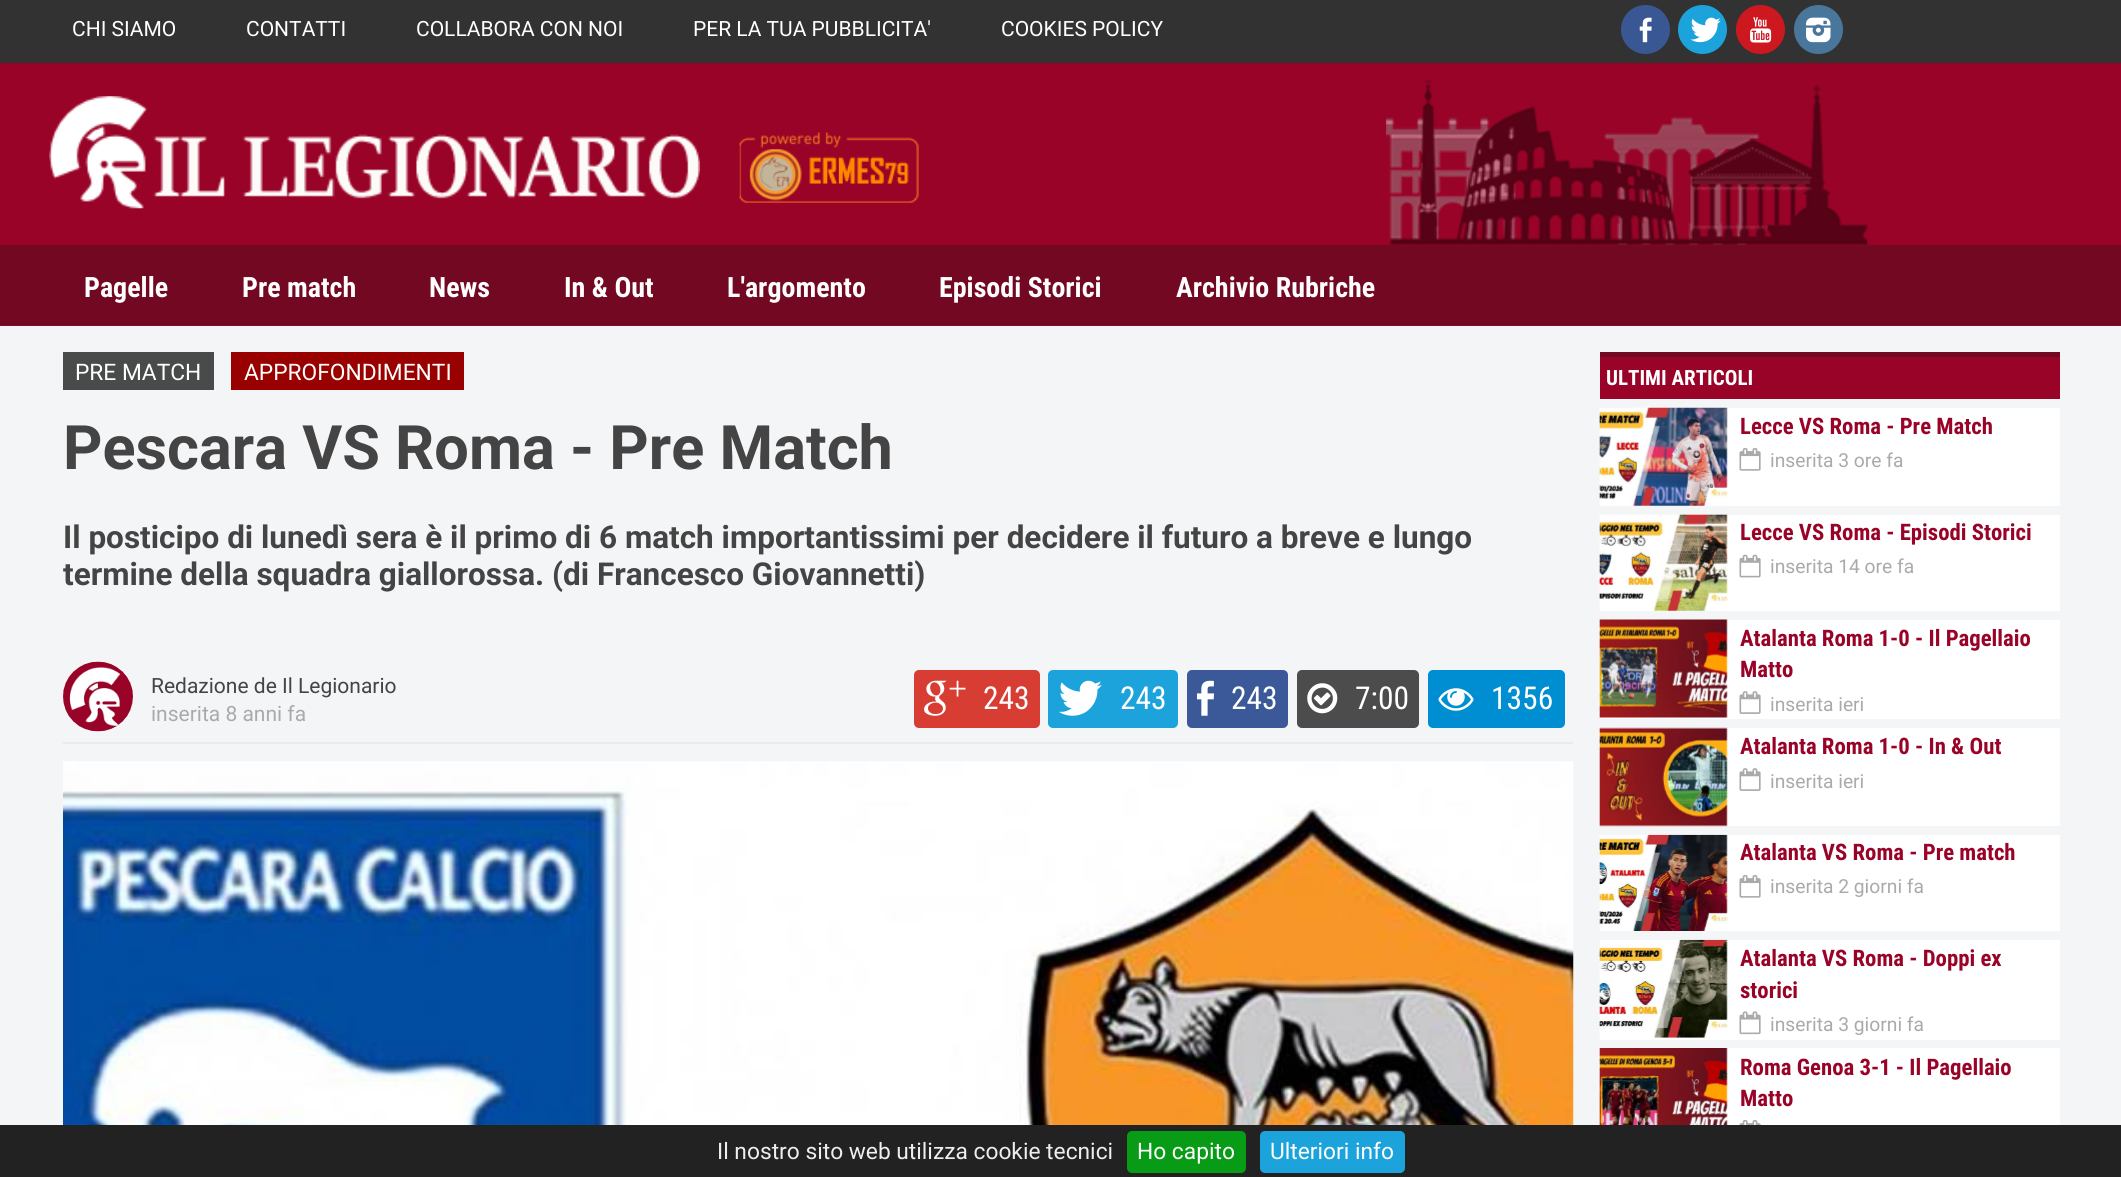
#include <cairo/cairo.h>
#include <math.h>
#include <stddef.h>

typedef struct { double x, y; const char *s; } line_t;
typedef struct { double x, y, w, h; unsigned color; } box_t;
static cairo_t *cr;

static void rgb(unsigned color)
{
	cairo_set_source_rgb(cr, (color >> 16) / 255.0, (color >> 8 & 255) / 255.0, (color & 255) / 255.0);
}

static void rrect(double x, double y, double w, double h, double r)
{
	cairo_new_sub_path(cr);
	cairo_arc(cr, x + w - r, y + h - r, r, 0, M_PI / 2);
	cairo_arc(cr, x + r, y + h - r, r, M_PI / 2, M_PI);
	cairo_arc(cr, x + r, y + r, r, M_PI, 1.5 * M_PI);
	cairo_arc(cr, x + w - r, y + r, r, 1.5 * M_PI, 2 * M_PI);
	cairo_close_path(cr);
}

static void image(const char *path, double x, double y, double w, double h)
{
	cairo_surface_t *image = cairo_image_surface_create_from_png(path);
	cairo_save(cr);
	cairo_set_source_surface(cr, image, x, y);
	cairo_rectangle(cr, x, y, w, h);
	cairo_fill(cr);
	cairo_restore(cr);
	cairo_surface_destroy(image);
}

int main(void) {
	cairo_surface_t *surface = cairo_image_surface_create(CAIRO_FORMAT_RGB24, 2121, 1177);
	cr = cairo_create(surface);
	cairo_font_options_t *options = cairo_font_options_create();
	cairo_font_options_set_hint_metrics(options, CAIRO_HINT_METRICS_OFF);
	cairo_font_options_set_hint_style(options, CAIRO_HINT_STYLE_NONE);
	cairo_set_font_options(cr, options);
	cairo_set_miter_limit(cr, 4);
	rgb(0xf4f5f7);
	cairo_paint(cr);
	rgb(0x323232);
	cairo_rectangle(cr, 0, 0, 2121, 63);
	cairo_fill(cr);
	rgb(0x395793);
	cairo_arc(cr, 1645.5, 29.5, 24.5, 0, 2 * M_PI);
	cairo_fill(cr);
	image("img/1.png", 1639, 17, 13, 26);
	rgb(0x1ca3db);
	cairo_arc(cr, 1702.5, 29.5, 24.5, 0, 2 * M_PI);
	cairo_fill(cr);
	image("img/2.png", 1690, 17, 31, 26);
	rgb(0xcc181e);
	cairo_arc(cr, 1760.5, 29.5, 24.5, 0, 2 * M_PI);
	cairo_fill(cr);
	image("img/3.png", 1750, 17, 22, 26);
	rgb(0x49779c);
	cairo_arc(cr, 1818.5, 29.5, 24.5, 0, 2 * M_PI);
	cairo_fill(cr);
	image("img/4.png", 1806, 17, 25, 26);
	rgb(0x960f2e);
	cairo_rectangle(cr, 0, 325, 2121, 1);
	cairo_fill(cr);
	image("img/5.png", 0, 63, 2121, 263);
	image("img/6.png", 49, 96, 651, 113);
	image("img/7.png", 739, 132, 180, 71);
	image("img/8.png", 1386, 79, 482, 166);
	{
		static const box_t items[] = {
			{63, 352, 151, 38, 0x494a4a},
			{231, 352, 233, 38, 0x990000},
			{63, 742, 1510, 2, 0xeaeaea},
		};
		for (size_t i = 0; i < sizeof items / sizeof *items; i++) {
			rgb(items[i].color);
			cairo_rectangle(cr, items[i].x, items[i].y, items[i].w, items[i].h);
			cairo_fill(cr);
		}
	}
	image("img/9.png", 63, 661, 70, 71);
	rgb(0xd73d32);
	rrect(914, 670, 126, 58, 5);
	cairo_fill(cr);
	image("img/10.png", 924, 680, 42, 36);
	rgb(0x1ca3db);
	rrect(1048, 670, 130, 58, 5);
	cairo_fill(cr);
	image("img/11.png", 1059, 680, 43, 36);
	rgb(0x3b5998);
	rrect(1187, 670, 101, 58, 5);
	cairo_fill(cr);
	image("img/12.png", 1197, 680, 17, 36);
	rgb(0x4c4c4c);
	rrect(1297, 670, 122, 58, 5);
	cairo_fill(cr);
	image("img/13.png", 1307, 683, 31, 31);
	rgb(0x008ed3);
	rrect(1428, 670, 137, 58, 5);
	cairo_fill(cr);
	image("img/14.png", 1438, 688, 36, 23);
	image("img/15.png", 63, 761, 1511, 364);
	{
		static const box_t items[] = {
			{1600, 357, 460, 42, 0x990328},
			{1600, 352, 460, 5, 0x730822},
			{1600, 408, 460, 98, 0xffffff},
		};
		for (size_t i = 0; i < sizeof items / sizeof *items; i++) {
			rgb(items[i].color);
			cairo_rectangle(cr, items[i].x, items[i].y, items[i].w, items[i].h);
			cairo_fill(cr);
		}
	}
	image("img/16.png", 1599, 407, 129, 99);
	image("img/17.png", 1739, 447, 22, 24);
	cairo_rectangle(cr, 1600, 515, 460, 96);
	cairo_fill(cr);
	image("img/18.png", 1599, 514, 129, 97);
	image("img/19.png", 1739, 554, 22, 24);
	cairo_rectangle(cr, 1600, 620, 460, 99);
	cairo_fill(cr);
	image("img/20.png", 1599, 619, 129, 99);
	image("img/21.png", 1739, 691, 22, 23);
	cairo_rectangle(cr, 1600, 728, 460, 98);
	cairo_fill(cr);
	image("img/22.png", 1599, 727, 129, 100);
	image("img/21.png", 1739, 768, 22, 23);
	cairo_rectangle(cr, 1726, 835, 334, 96);
	cairo_fill(cr);
	image("img/23.png", 1599, 834, 129, 97);
	image("img/17.png", 1739, 874, 22, 24);
	cairo_rectangle(cr, 1600, 940, 460, 100);
	cairo_fill(cr);
	image("img/24.png", 1599, 939, 129, 99);
	image("img/25.png", 1739, 1011, 22, 24);
	cairo_rectangle(cr, 1726, 1048, 334, 77);
	cairo_fill(cr);
	image("img/26.png", 1599, 1048, 129, 77);
	image("img/27.png", 1739, 1119, 22, 6);
	rgb(0x222222);
	cairo_rectangle(cr, 0, 1125, 2121, 52);
	cairo_fill(cr);
	rgb(0x079b16);
	rrect(1127, 1131, 119, 42, 5);
	cairo_fill(cr);
	rgb(0x1ca3db);
	rrect(1260, 1131, 145, 42, 5);
	cairo_fill(cr);
	cairo_select_font_face(cr, "Roboto", CAIRO_FONT_SLANT_NORMAL, CAIRO_FONT_WEIGHT_NORMAL);
	cairo_set_font_size(cr, 21);
	rgb(0xffffff);
	{
		static const line_t items[] = {
			{72, 36, "CHI SIAMO"},
			{246, 36, "CONTATTI"},
			{416, 36, "COLLABORA CON NOI"},
			{693, 36, "PER LA TUA PUBBLICITA'"},
			{1001, 36, "COOKIES POLICY"},
		};
		for (size_t i = 0; i < sizeof items / sizeof *items; i++) {
			cairo_move_to(cr, items[i].x, items[i].y);
			cairo_show_text(cr, items[i].s);
		}
	}
	cairo_select_font_face(cr, "Roboto Condensed", CAIRO_FONT_SLANT_NORMAL, CAIRO_FONT_WEIGHT_BOLD);
	cairo_set_font_size(cr, 28);
	{
		static const line_t items[] = {
			{84, 297, "Pagelle"},
			{242, 297, "Pre match"},
			{429, 297, "News"},
			{564, 297, "In & Out"},
			{727, 297, "L'argomento"},
			{939, 297, "Episodi Storici"},
			{1176, 297, "Archivio Rubriche"},
		};
		for (size_t i = 0; i < sizeof items / sizeof *items; i++) {
			cairo_move_to(cr, items[i].x, items[i].y);
			cairo_show_text(cr, items[i].s);
		}
	}
	cairo_select_font_face(cr, "Roboto", CAIRO_FONT_SLANT_NORMAL, CAIRO_FONT_WEIGHT_NORMAL);
	cairo_set_font_size(cr, 22.75);
	cairo_move_to(cr, 75, 380);
	cairo_show_text(cr, "PRE MATCH");
	cairo_move_to(cr, 244, 380);
	cairo_show_text(cr, "APPROFONDIMENTI");
	cairo_select_font_face(cr, "Roboto", CAIRO_FONT_SLANT_NORMAL, CAIRO_FONT_WEIGHT_BOLD);
	cairo_set_font_size(cr, 61.25);
	rgb(0x444444);
	cairo_move_to(cr, 63, 469);
	cairo_show_text(cr, "Pescara VS Roma - Pre Match");
	cairo_set_font_size(cr, 31.5);
	cairo_move_to(cr, 63, 548);
	cairo_show_text(cr, "Il posticipo di lunedì sera è il primo di 6 match importantissimi per decidere il futuro a breve e lungo");
	cairo_move_to(cr, 63, 585);
	cairo_show_text(cr, "termine della squadra giallorossa. (di Francesco Giovannetti)");
	cairo_select_font_face(cr, "Roboto", CAIRO_FONT_SLANT_NORMAL, CAIRO_FONT_WEIGHT_NORMAL);
	cairo_set_font_size(cr, 21);
	cairo_move_to(cr, 151, 693);
	cairo_show_text(cr, "Redazione de Il Legionario");
	rgb(0xaaaaaa);
	cairo_move_to(cr, 151, 721);
	cairo_show_text(cr, "inserita 8 anni fa");
	cairo_select_font_face(cr, "Roboto Condensed", CAIRO_FONT_SLANT_NORMAL, CAIRO_FONT_WEIGHT_NORMAL);
	cairo_set_font_size(cr, 31.5);
	rgb(0xffffff);
	{
		static const line_t items[] = {
			{983, 709, "243"},
			{1120, 709, "243"},
			{1231, 709, "243"},
			{1355, 709, "7:00"},
			{1491, 709, "1356"},
		};
		for (size_t i = 0; i < sizeof items / sizeof *items; i++) {
			cairo_move_to(cr, items[i].x, items[i].y);
			cairo_show_text(cr, items[i].s);
		}
	}
	cairo_select_font_face(cr, "Roboto Condensed", CAIRO_FONT_SLANT_NORMAL, CAIRO_FONT_WEIGHT_BOLD);
	cairo_set_font_size(cr, 21);
	cairo_move_to(cr, 1606, 385);
	cairo_show_text(cr, "ULTIMI ARTICOLI");
	cairo_set_font_size(cr, 22.75);
	rgb(0x990328);
	cairo_move_to(cr, 1740, 434);
	cairo_show_text(cr, "Lecce VS Roma - Pre Match");
	cairo_select_font_face(cr, "Roboto", CAIRO_FONT_SLANT_NORMAL, CAIRO_FONT_WEIGHT_NORMAL);
	cairo_set_font_size(cr, 19.25);
	rgb(0xaaaaaa);
	cairo_move_to(cr, 1770, 467);
	cairo_show_text(cr, "inserita 3 ore fa");
	cairo_select_font_face(cr, "Roboto Condensed", CAIRO_FONT_SLANT_NORMAL, CAIRO_FONT_WEIGHT_BOLD);
	cairo_set_font_size(cr, 22.75);
	rgb(0x990328);
	cairo_move_to(cr, 1740, 540);
	cairo_show_text(cr, "Lecce VS Roma - Episodi Storici");
	cairo_select_font_face(cr, "Roboto", CAIRO_FONT_SLANT_NORMAL, CAIRO_FONT_WEIGHT_NORMAL);
	cairo_set_font_size(cr, 19.25);
	rgb(0xaaaaaa);
	cairo_move_to(cr, 1770, 573);
	cairo_show_text(cr, "inserita 14 ore fa");
	cairo_select_font_face(cr, "Roboto Condensed", CAIRO_FONT_SLANT_NORMAL, CAIRO_FONT_WEIGHT_BOLD);
	cairo_set_font_size(cr, 22.75);
	rgb(0x990328);
	cairo_move_to(cr, 1740, 646);
	cairo_show_text(cr, "Atalanta Roma 1-0 - Il Pagellaio");
	cairo_move_to(cr, 1740, 677);
	cairo_show_text(cr, "Matto");
	cairo_select_font_face(cr, "Roboto", CAIRO_FONT_SLANT_NORMAL, CAIRO_FONT_WEIGHT_NORMAL);
	cairo_set_font_size(cr, 19.25);
	rgb(0xaaaaaa);
	cairo_move_to(cr, 1770, 711);
	cairo_show_text(cr, "inserita ieri");
	cairo_select_font_face(cr, "Roboto Condensed", CAIRO_FONT_SLANT_NORMAL, CAIRO_FONT_WEIGHT_BOLD);
	cairo_set_font_size(cr, 22.75);
	rgb(0x990328);
	cairo_move_to(cr, 1740, 754);
	cairo_show_text(cr, "Atalanta Roma 1-0 - In & Out");
	cairo_select_font_face(cr, "Roboto", CAIRO_FONT_SLANT_NORMAL, CAIRO_FONT_WEIGHT_NORMAL);
	cairo_set_font_size(cr, 19.25);
	rgb(0xaaaaaa);
	cairo_move_to(cr, 1770, 788);
	cairo_show_text(cr, "inserita ieri");
	cairo_select_font_face(cr, "Roboto Condensed", CAIRO_FONT_SLANT_NORMAL, CAIRO_FONT_WEIGHT_BOLD);
	cairo_set_font_size(cr, 22.75);
	rgb(0x990328);
	cairo_move_to(cr, 1740, 860);
	cairo_show_text(cr, "Atalanta VS Roma - Pre match");
	cairo_select_font_face(cr, "Roboto", CAIRO_FONT_SLANT_NORMAL, CAIRO_FONT_WEIGHT_NORMAL);
	cairo_set_font_size(cr, 19.25);
	rgb(0xaaaaaa);
	cairo_move_to(cr, 1770, 893);
	cairo_show_text(cr, "inserita 2 giorni fa");
	cairo_select_font_face(cr, "Roboto Condensed", CAIRO_FONT_SLANT_NORMAL, CAIRO_FONT_WEIGHT_BOLD);
	cairo_set_font_size(cr, 22.75);
	rgb(0x990328);
	cairo_move_to(cr, 1740, 966);
	cairo_show_text(cr, "Atalanta VS Roma - Doppi ex");
	cairo_move_to(cr, 1740, 998);
	cairo_show_text(cr, "storici");
	cairo_select_font_face(cr, "Roboto", CAIRO_FONT_SLANT_NORMAL, CAIRO_FONT_WEIGHT_NORMAL);
	cairo_set_font_size(cr, 19.25);
	rgb(0xaaaaaa);
	cairo_move_to(cr, 1770, 1031);
	cairo_show_text(cr, "inserita 3 giorni fa");
	cairo_select_font_face(cr, "Roboto Condensed", CAIRO_FONT_SLANT_NORMAL, CAIRO_FONT_WEIGHT_BOLD);
	cairo_set_font_size(cr, 22.75);
	rgb(0x990328);
	cairo_move_to(cr, 1740, 1075);
	cairo_show_text(cr, "Roma Genoa 3-1 - Il Pagellaio");
	cairo_move_to(cr, 1740, 1106);
	cairo_show_text(cr, "Matto");
	cairo_select_font_face(cr, "Roboto", CAIRO_FONT_SLANT_NORMAL, CAIRO_FONT_WEIGHT_NORMAL);
	rgb(0xeeeeee);
	cairo_move_to(cr, 717, 1159);
	cairo_show_text(cr, "Il nostro sito web utilizza cookie tecnici");
	rgb(0xffffff);
	cairo_move_to(cr, 1137, 1159);
	cairo_show_text(cr, "Ho capito");
	cairo_move_to(cr, 1270, 1159);
	cairo_show_text(cr, "Ulteriori info");
	cairo_surface_write_to_png(surface, "page.png");
	cairo_font_options_destroy(options);
	cairo_destroy(cr);
	cairo_surface_destroy(surface);
	return 0;
}
